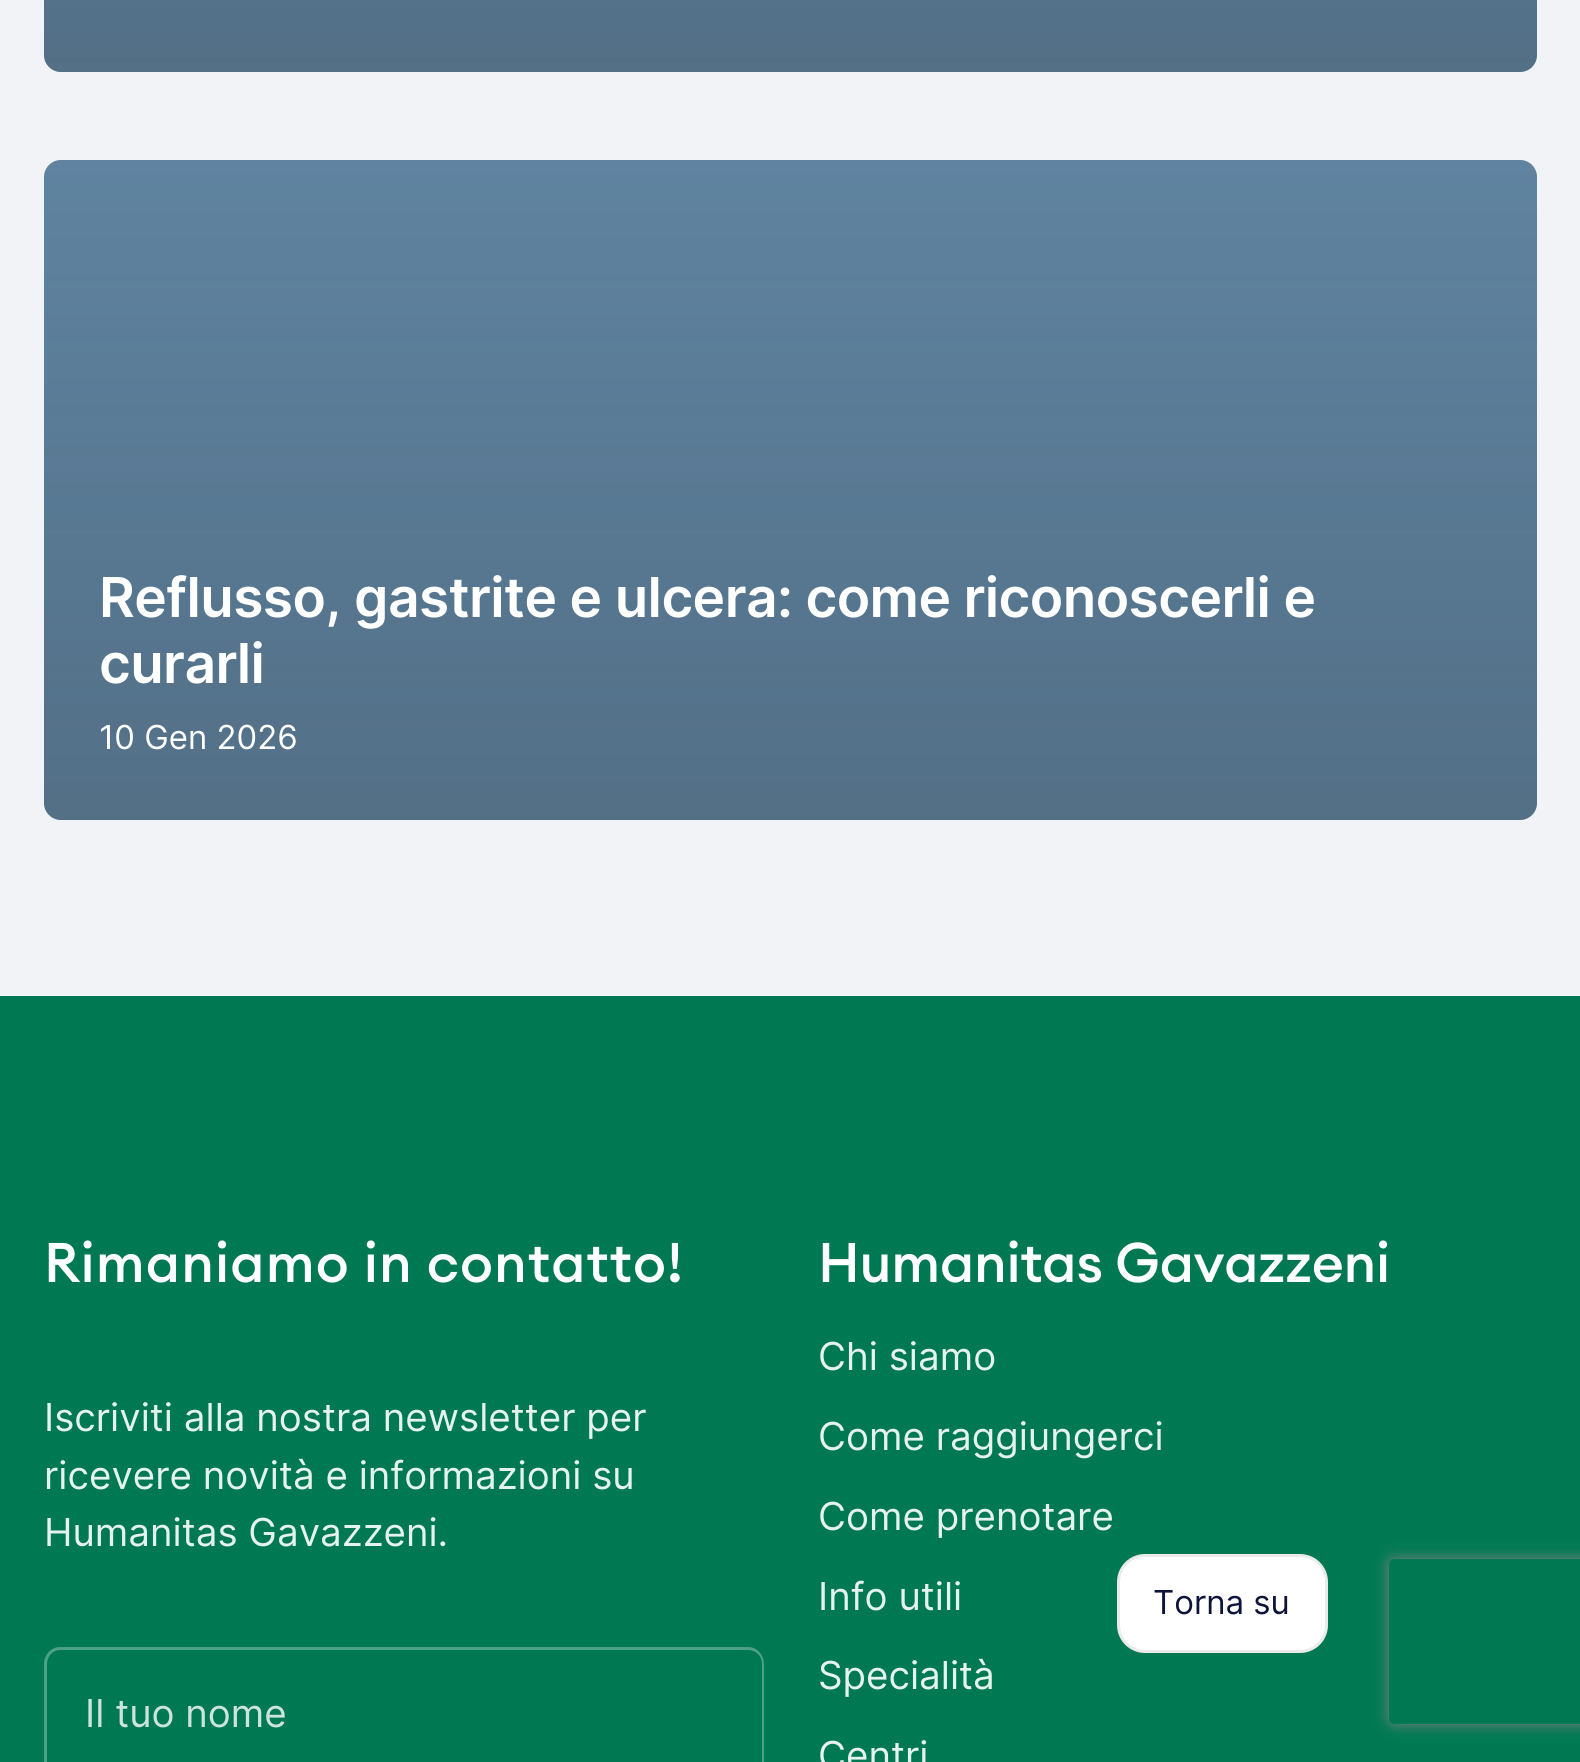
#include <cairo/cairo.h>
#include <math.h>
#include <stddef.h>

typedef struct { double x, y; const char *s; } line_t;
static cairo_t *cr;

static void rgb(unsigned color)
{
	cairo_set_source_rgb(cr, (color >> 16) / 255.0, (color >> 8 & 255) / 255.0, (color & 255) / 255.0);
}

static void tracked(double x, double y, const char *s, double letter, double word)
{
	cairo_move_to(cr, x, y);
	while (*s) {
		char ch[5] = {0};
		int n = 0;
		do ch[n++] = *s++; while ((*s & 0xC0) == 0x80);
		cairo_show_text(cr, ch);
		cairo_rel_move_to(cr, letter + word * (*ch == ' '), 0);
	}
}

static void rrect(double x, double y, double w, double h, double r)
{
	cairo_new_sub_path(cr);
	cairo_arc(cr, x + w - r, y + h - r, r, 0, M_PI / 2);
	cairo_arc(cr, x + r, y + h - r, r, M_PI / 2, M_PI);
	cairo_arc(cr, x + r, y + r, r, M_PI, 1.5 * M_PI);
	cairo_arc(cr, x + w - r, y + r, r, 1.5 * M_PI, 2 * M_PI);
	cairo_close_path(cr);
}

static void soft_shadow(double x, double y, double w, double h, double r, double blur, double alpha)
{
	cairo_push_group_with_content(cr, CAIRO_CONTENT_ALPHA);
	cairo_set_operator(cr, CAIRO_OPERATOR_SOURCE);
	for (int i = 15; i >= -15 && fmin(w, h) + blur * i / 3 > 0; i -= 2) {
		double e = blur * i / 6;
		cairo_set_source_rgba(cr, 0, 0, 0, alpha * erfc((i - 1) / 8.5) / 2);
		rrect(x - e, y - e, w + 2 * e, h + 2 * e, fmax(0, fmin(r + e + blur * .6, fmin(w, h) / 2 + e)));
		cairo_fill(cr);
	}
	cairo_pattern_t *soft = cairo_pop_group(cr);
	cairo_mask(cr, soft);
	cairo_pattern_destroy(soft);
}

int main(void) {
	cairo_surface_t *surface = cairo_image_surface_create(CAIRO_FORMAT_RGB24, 1580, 1762);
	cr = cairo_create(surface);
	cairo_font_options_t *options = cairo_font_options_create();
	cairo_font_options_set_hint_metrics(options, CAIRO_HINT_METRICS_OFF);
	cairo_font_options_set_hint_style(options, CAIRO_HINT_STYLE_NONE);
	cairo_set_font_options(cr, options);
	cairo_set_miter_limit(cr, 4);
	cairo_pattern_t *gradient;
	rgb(0xf1f3f7);
	cairo_paint(cr);
	rgb(0x658dad);
	rrect(44, -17, 1493, 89, 17);
	cairo_fill(cr);
	gradient = cairo_pattern_create_linear(791, -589, 791, 72);
	cairo_pattern_add_color_stop_rgba(gradient, 0, 0.157, 0.165, 0.176, 0.1);
	cairo_pattern_add_color_stop_rgba(gradient, 1, 0.157, 0.165, 0.176, 0.3);
	cairo_set_source(cr, gradient);
	cairo_pattern_destroy(gradient);
	rrect(44, -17, 1493, 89, 17);
	cairo_fill(cr);
	rgb(0x658dad);
	rrect(44, 160, 1493, 660, 17);
	cairo_fill(cr);
	gradient = cairo_pattern_create_linear(791, 159, 791, 820);
	cairo_pattern_add_color_stop_rgba(gradient, 0, 0.157, 0.165, 0.176, 0.1);
	cairo_pattern_add_color_stop_rgba(gradient, 1, 0.157, 0.165, 0.176, 0.3);
	cairo_set_source(cr, gradient);
	cairo_pattern_destroy(gradient);
	rrect(44, 160, 1493, 660, 17);
	cairo_fill(cr);
	rgb(0x007953);
	cairo_rectangle(cr, 0, 996, 1580, 766);
	cairo_fill(cr);
	rgb(0xffffff);
	rrect(1118.5, 1555.5, 208, 96, 26.5);
	cairo_fill_preserve(cr);
	rgb(0xeaeaea);
	cairo_set_line_width(cr, 3);
	cairo_stroke(cr);
	rgb(0x4da187);
	cairo_set_fill_rule(cr, CAIRO_FILL_RULE_EVEN_ODD);
	cairo_new_path(cr);
	cairo_move_to(cr, 60, 1647);
	cairo_line_to(cr, 748, 1647);
	cairo_curve_to(cr, 757, 1647, 764, 1655, 764, 1664);
	cairo_line_to(cr, 764, 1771);
	cairo_line_to(cr, 44, 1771);
	cairo_line_to(cr, 44, 1664);
	cairo_curve_to(cr, 44, 1655, 51, 1647, 60, 1647);
	cairo_close_path(cr);
	cairo_move_to(cr, 60, 1650);
	cairo_line_to(cr, 748, 1650);
	cairo_curve_to(cr, 756, 1650, 762, 1656, 762, 1664);
	cairo_line_to(cr, 762, 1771);
	cairo_line_to(cr, 47, 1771);
	cairo_line_to(cr, 47, 1664);
	cairo_curve_to(cr, 47, 1656, 53, 1650, 60, 1650);
	cairo_close_path(cr);
	cairo_fill(cr);
	cairo_save(cr);
	cairo_new_path(cr);
	cairo_move_to(cr, 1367, 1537);
	cairo_line_to(cr, 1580, 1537);
	cairo_line_to(cr, 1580, 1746);
	cairo_line_to(cr, 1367, 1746);
	cairo_close_path(cr);
	cairo_move_to(cr, 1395, 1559);
	cairo_line_to(cr, 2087, 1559);
	cairo_curve_to(cr, 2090.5, 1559, 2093, 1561.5, 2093, 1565);
	cairo_line_to(cr, 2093, 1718);
	cairo_curve_to(cr, 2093, 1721.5, 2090.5, 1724, 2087, 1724);
	cairo_line_to(cr, 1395, 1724);
	cairo_curve_to(cr, 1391.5, 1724, 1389, 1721.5, 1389, 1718);
	cairo_line_to(cr, 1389, 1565);
	cairo_curve_to(cr, 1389, 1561.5, 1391.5, 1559, 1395, 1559);
	cairo_close_path(cr);
	cairo_clip(cr);
	rgb(0x808080);
	soft_shadow(1389, 1559, 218, 165, 6, 7, 1);
	cairo_restore(cr);
	cairo_select_font_face(cr, "Inter SemiBold", CAIRO_FONT_SLANT_NORMAL, CAIRO_FONT_WEIGHT_NORMAL);
	cairo_set_font_size(cr, 55);
	rgb(0xffffff);
	tracked(99, 617, "Reflusso, gastrite e ulcera: come riconoscerli e", -0.55, 0);
	tracked(99, 683, "curarli", -0.55, 0);
	cairo_select_font_face(cr, "Inter", CAIRO_FONT_SLANT_NORMAL, CAIRO_FONT_WEIGHT_NORMAL);
	cairo_set_font_size(cr, 33);
	cairo_move_to(cr, 99, 749);
	cairo_show_text(cr, "10 Gen 2026");
	rgb(0x0c143a);
	cairo_move_to(cr, 1153, 1614);
	cairo_show_text(cr, "Torna su");
	cairo_select_font_face(cr, "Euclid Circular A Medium", CAIRO_FONT_SLANT_NORMAL, CAIRO_FONT_WEIGHT_NORMAL);
	cairo_set_font_size(cr, 55);
	rgb(0xffffff);
	tracked(44, 1282, "Rimaniamo in contatto!", 1.1, 0);
	cairo_select_font_face(cr, "Inter", CAIRO_FONT_SLANT_NORMAL, CAIRO_FONT_WEIGHT_NORMAL);
	cairo_set_font_size(cr, 38.5);
	rgb(0xe6f2ee);
	{
		static const line_t items[] = {
			{44, 1431, "Iscriviti alla nostra newsletter per"},
			{44, 1489, "ricevere novità e informazioni su"},
			{44, 1546, "Humanitas Gavazzeni."},
		};
		for (size_t i = 0; i < sizeof items / sizeof *items; i++) {
			cairo_move_to(cr, items[i].x, items[i].y);
			cairo_show_text(cr, items[i].s);
		}
	}
	rgb(0xcce4dd);
	cairo_move_to(cr, 85, 1727);
	cairo_show_text(cr, "Il tuo nome");
	cairo_select_font_face(cr, "Euclid Circular A Medium", CAIRO_FONT_SLANT_NORMAL, CAIRO_FONT_WEIGHT_NORMAL);
	cairo_set_font_size(cr, 55);
	rgb(0xffffff);
	tracked(818, 1282, "Humanitas Gavazzeni", -0.25, 0);
	cairo_select_font_face(cr, "Inter", CAIRO_FONT_SLANT_NORMAL, CAIRO_FONT_WEIGHT_NORMAL);
	cairo_set_font_size(cr, 38.5);
	rgb(0xe6f2ee);
	{
		static const line_t items[] = {
			{818, 1370, "Chi siamo"},
			{818, 1450, "Come raggiungerci"},
			{818, 1530, "Come prenotare"},
			{818, 1610, "Info utili"},
			{818, 1689, "Specialità"},
			{818, 1769, "Centri"},
		};
		for (size_t i = 0; i < sizeof items / sizeof *items; i++) {
			cairo_move_to(cr, items[i].x, items[i].y);
			cairo_show_text(cr, items[i].s);
		}
	}
	cairo_surface_write_to_png(surface, "page.png");
	cairo_font_options_destroy(options);
	cairo_destroy(cr);
	cairo_surface_destroy(surface);
	return 0;
}
